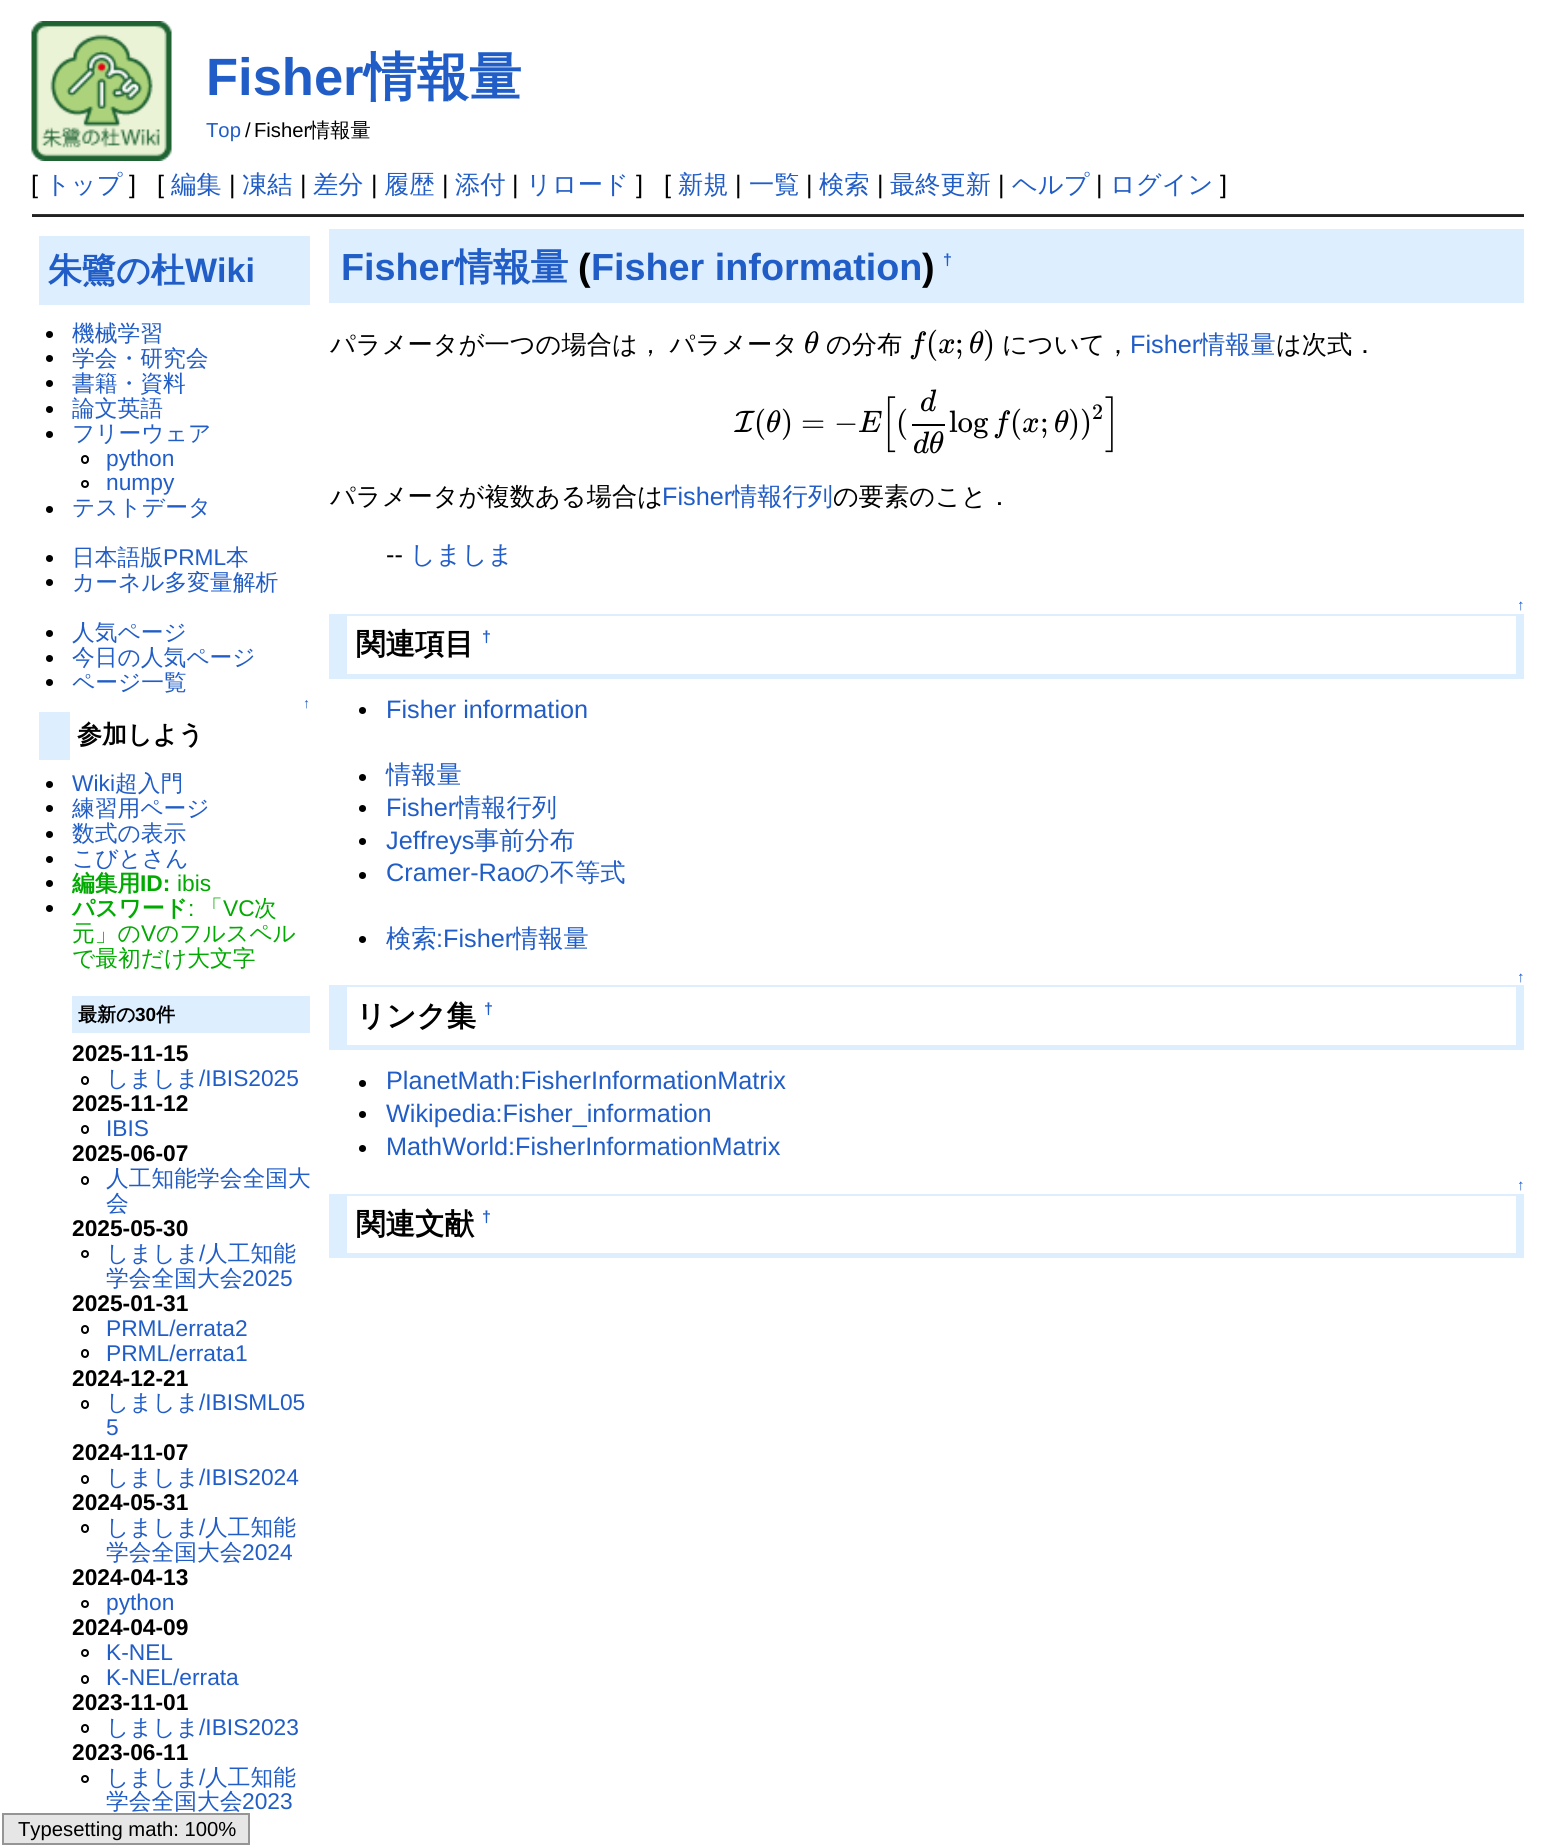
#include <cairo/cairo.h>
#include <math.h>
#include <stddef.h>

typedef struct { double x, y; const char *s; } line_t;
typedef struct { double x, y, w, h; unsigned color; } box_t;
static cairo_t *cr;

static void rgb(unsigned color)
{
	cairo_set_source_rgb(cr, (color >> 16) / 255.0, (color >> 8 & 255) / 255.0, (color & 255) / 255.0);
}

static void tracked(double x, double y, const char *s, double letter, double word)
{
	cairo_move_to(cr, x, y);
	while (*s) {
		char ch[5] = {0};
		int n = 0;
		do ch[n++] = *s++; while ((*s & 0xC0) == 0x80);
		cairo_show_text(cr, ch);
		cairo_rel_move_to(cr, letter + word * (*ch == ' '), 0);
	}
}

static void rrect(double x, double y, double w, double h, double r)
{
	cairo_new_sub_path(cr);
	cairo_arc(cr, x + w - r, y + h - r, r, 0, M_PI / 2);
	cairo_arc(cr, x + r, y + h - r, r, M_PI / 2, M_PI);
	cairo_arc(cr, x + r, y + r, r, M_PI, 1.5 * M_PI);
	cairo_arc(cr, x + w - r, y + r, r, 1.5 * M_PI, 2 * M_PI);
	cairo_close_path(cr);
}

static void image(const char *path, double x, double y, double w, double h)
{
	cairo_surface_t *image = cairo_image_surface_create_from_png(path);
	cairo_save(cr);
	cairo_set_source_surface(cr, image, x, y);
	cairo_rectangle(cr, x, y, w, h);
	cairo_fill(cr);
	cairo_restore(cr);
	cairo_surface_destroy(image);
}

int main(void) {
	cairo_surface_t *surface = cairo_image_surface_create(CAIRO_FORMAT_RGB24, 1555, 1847);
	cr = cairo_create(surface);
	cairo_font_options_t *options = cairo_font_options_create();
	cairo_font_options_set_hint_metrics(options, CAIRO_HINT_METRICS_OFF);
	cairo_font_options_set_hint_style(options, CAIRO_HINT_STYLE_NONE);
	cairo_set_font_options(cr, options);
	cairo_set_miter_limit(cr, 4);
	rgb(0xffffff);
	cairo_paint(cr);
	image("img/1.png", 31, 21, 141, 140);
	{
		static const box_t items[] = {
			{32, 214, 1492, 1, 0x333333},
			{32, 215, 1492, 2, 0x222222},
			{39, 236, 271, 69, 0xddeeff},
		};
		for (size_t i = 0; i < sizeof items / sizeof *items; i++) {
			rgb(items[i].color);
			cairo_rectangle(cr, items[i].x, items[i].y, items[i].w, items[i].h);
			cairo_fill(cr);
		}
	}
	rgb(0x000000);
	cairo_arc(cr, 49.5, 334.5, 3.5, 0, 2 * M_PI);
	cairo_fill(cr);
	cairo_arc(cr, 49.5, 358.5, 3.5, 0, 2 * M_PI);
	cairo_fill(cr);
	cairo_arc(cr, 49.5, 383.5, 3.5, 0, 2 * M_PI);
	cairo_fill(cr);
	cairo_arc(cr, 49.5, 409.5, 3.5, 0, 2 * M_PI);
	cairo_fill(cr);
	cairo_arc(cr, 49.5, 434.5, 3.5, 0, 2 * M_PI);
	cairo_fill(cr);
	rrect(82, 456, 6, 7, 3);
	cairo_stroke(cr);
	cairo_arc(cr, 85, 484, 3, 0, 2 * M_PI);
	cairo_stroke(cr);
	cairo_arc(cr, 49.5, 509.5, 3.5, 0, 2 * M_PI);
	cairo_fill(cr);
	cairo_arc(cr, 49.5, 558.5, 3.5, 0, 2 * M_PI);
	cairo_fill(cr);
	cairo_arc(cr, 49.5, 582.5, 3.5, 0, 2 * M_PI);
	cairo_fill(cr);
	cairo_arc(cr, 49.5, 633.5, 3.5, 0, 2 * M_PI);
	cairo_fill(cr);
	cairo_arc(cr, 49.5, 658.5, 3.5, 0, 2 * M_PI);
	cairo_fill(cr);
	cairo_arc(cr, 49.5, 682.5, 3.5, 0, 2 * M_PI);
	cairo_fill(cr);
	rgb(0xddeeff);
	cairo_rectangle(cr, 39, 712, 31, 48);
	cairo_fill(cr);
	rgb(0x000000);
	cairo_arc(cr, 49.5, 784.5, 3.5, 0, 2 * M_PI);
	cairo_fill(cr);
	cairo_arc(cr, 49.5, 808.5, 3.5, 0, 2 * M_PI);
	cairo_fill(cr);
	cairo_arc(cr, 49.5, 834.5, 3.5, 0, 2 * M_PI);
	cairo_fill(cr);
	cairo_arc(cr, 49.5, 859.5, 3.5, 0, 2 * M_PI);
	cairo_fill(cr);
	cairo_arc(cr, 49.5, 883.5, 3.5, 0, 2 * M_PI);
	cairo_fill(cr);
	cairo_arc(cr, 49.5, 908.5, 3.5, 0, 2 * M_PI);
	cairo_fill(cr);
	rgb(0xddeeff);
	cairo_rectangle(cr, 72, 996, 238, 37);
	cairo_fill(cr);
	rrect(82, 1077, 6, 7, 3);
	rgb(0x000000);
	cairo_stroke(cr);
	rrect(82, 1126, 6, 7, 3);
	cairo_stroke(cr);
	rrect(82, 1177, 6, 7, 3);
	cairo_stroke(cr);
	cairo_arc(cr, 85, 1254, 3, 0, 2 * M_PI);
	cairo_stroke(cr);
	rrect(82, 1326, 6, 7, 3);
	cairo_stroke(cr);
	rrect(82, 1350, 6, 7, 3);
	cairo_stroke(cr);
	rrect(82, 1401, 6, 7, 3);
	cairo_stroke(cr);
	rrect(82, 1476, 6, 7, 3);
	cairo_stroke(cr);
	rrect(82, 1525, 6, 7, 3);
	cairo_stroke(cr);
	cairo_arc(cr, 85, 1604, 3, 0, 2 * M_PI);
	cairo_stroke(cr);
	cairo_arc(cr, 85, 1653, 3, 0, 2 * M_PI);
	cairo_stroke(cr);
	rrect(82, 1676, 6, 7, 3);
	cairo_stroke(cr);
	rrect(82, 1725, 6, 7, 3);
	cairo_stroke(cr);
	cairo_arc(cr, 85, 1779, 3, 0, 2 * M_PI);
	cairo_stroke(cr);
	{
		static const box_t items[] = {
			{329, 229, 1195, 74, 0xddeeff},
			{912, 424, 33, 2, 0x000000},
			{347, 614, 1177, 2, 0xddeeff},
			{1516, 614, 8, 65, 0xddeeff},
			{347, 674, 1177, 5, 0xddeeff},
			{329, 614, 18, 65, 0xddeeff},
		};
		for (size_t i = 0; i < sizeof items / sizeof *items; i++) {
			rgb(items[i].color);
			cairo_rectangle(cr, items[i].x, items[i].y, items[i].w, items[i].h);
			cairo_fill(cr);
		}
	}
	rgb(0x000000);
	cairo_arc(cr, 362.5, 710.5, 3.5, 0, 2 * M_PI);
	cairo_fill(cr);
	cairo_arc(cr, 362.5, 777.5, 3.5, 0, 2 * M_PI);
	cairo_fill(cr);
	cairo_arc(cr, 362.5, 808.5, 3.5, 0, 2 * M_PI);
	cairo_fill(cr);
	cairo_arc(cr, 362.5, 841.5, 3.5, 0, 2 * M_PI);
	cairo_fill(cr);
	cairo_arc(cr, 362.5, 875.5, 3.5, 0, 2 * M_PI);
	cairo_fill(cr);
	cairo_arc(cr, 362.5, 939.5, 3.5, 0, 2 * M_PI);
	cairo_fill(cr);
	{
		static const box_t items[] = {
			{347, 985, 1177, 2, 0xddeeff},
			{1516, 985, 8, 65, 0xddeeff},
			{347, 1045, 1177, 5, 0xddeeff},
			{329, 985, 18, 65, 0xddeeff},
		};
		for (size_t i = 0; i < sizeof items / sizeof *items; i++) {
			rgb(items[i].color);
			cairo_rectangle(cr, items[i].x, items[i].y, items[i].w, items[i].h);
			cairo_fill(cr);
		}
	}
	rgb(0x000000);
	cairo_arc(cr, 362.5, 1083.5, 3.5, 0, 2 * M_PI);
	cairo_fill(cr);
	cairo_arc(cr, 362.5, 1114.5, 3.5, 0, 2 * M_PI);
	cairo_fill(cr);
	cairo_arc(cr, 362.5, 1148.5, 3.5, 0, 2 * M_PI);
	cairo_fill(cr);
	{
		static const box_t items[] = {
			{347, 1194, 1177, 2, 0xddeeff},
			{1516, 1194, 8, 64, 0xddeeff},
			{347, 1253, 1177, 5, 0xddeeff},
			{329, 1194, 18, 64, 0xddeeff},
		};
		for (size_t i = 0; i < sizeof items / sizeof *items; i++) {
			rgb(items[i].color);
			cairo_rectangle(cr, items[i].x, items[i].y, items[i].w, items[i].h);
			cairo_fill(cr);
		}
	}
	rgb(0xe6e6e6);
	cairo_rectangle(cr, 3, 1814, 246, 30);
	cairo_fill_preserve(cr);
	rgb(0x959595);
	cairo_stroke(cr);
	cairo_select_font_face(cr, "Liberation Sans", CAIRO_FONT_SLANT_NORMAL, CAIRO_FONT_WEIGHT_BOLD);
	cairo_set_font_size(cr, 52.5);
	rgb(0x215dc6);
	cairo_move_to(cr, 206, 95);
	cairo_show_text(cr, "Fisher");
	cairo_select_font_face(cr, "WenQuanYi Zen Hei", CAIRO_FONT_SLANT_NORMAL, CAIRO_FONT_WEIGHT_BOLD);
	cairo_move_to(cr, 364, 95);
	cairo_show_text(cr, "情報量");
	cairo_select_font_face(cr, "Liberation Sans", CAIRO_FONT_SLANT_NORMAL, CAIRO_FONT_WEIGHT_NORMAL);
	cairo_set_font_size(cr, 20.25);
	cairo_move_to(cr, 206, 137);
	cairo_show_text(cr, "Top");
	rgb(0x000000);
	cairo_move_to(cr, 245, 137);
	cairo_show_text(cr, "/");
	cairo_move_to(cr, 254, 137);
	cairo_show_text(cr, "Fisher");
	cairo_select_font_face(cr, "WenQuanYi Zen Hei Medium", CAIRO_FONT_SLANT_NORMAL, CAIRO_FONT_WEIGHT_NORMAL);
	cairo_move_to(cr, 310, 137);
	cairo_show_text(cr, "情報量");
	cairo_select_font_face(cr, "Liberation Sans", CAIRO_FONT_SLANT_NORMAL, CAIRO_FONT_WEIGHT_NORMAL);
	cairo_set_font_size(cr, 25.25);
	cairo_move_to(cr, 31, 193);
	cairo_show_text(cr, "[");
	cairo_select_font_face(cr, "WenQuanYi Zen Hei Medium", CAIRO_FONT_SLANT_NORMAL, CAIRO_FONT_WEIGHT_NORMAL);
	rgb(0x215dc6);
	cairo_move_to(cr, 45, 193);
	cairo_show_text(cr, "トップ");
	cairo_select_font_face(cr, "Liberation Sans", CAIRO_FONT_SLANT_NORMAL, CAIRO_FONT_WEIGHT_NORMAL);
	rgb(0x000000);
	cairo_move_to(cr, 129, 193);
	cairo_show_text(cr, "]");
	cairo_move_to(cr, 157, 193);
	cairo_show_text(cr, "[");
	cairo_select_font_face(cr, "WenQuanYi Zen Hei Medium", CAIRO_FONT_SLANT_NORMAL, CAIRO_FONT_WEIGHT_NORMAL);
	rgb(0x215dc6);
	cairo_move_to(cr, 171, 193);
	cairo_show_text(cr, "編集");
	cairo_select_font_face(cr, "Liberation Sans", CAIRO_FONT_SLANT_NORMAL, CAIRO_FONT_WEIGHT_NORMAL);
	rgb(0x000000);
	cairo_move_to(cr, 229, 193);
	cairo_show_text(cr, "|");
	cairo_select_font_face(cr, "WenQuanYi Zen Hei Medium", CAIRO_FONT_SLANT_NORMAL, CAIRO_FONT_WEIGHT_NORMAL);
	rgb(0x215dc6);
	cairo_move_to(cr, 242, 193);
	cairo_show_text(cr, "凍結");
	cairo_select_font_face(cr, "Liberation Sans", CAIRO_FONT_SLANT_NORMAL, CAIRO_FONT_WEIGHT_NORMAL);
	rgb(0x000000);
	cairo_move_to(cr, 300, 193);
	cairo_show_text(cr, "|");
	cairo_select_font_face(cr, "WenQuanYi Zen Hei Medium", CAIRO_FONT_SLANT_NORMAL, CAIRO_FONT_WEIGHT_NORMAL);
	rgb(0x215dc6);
	cairo_move_to(cr, 313, 193);
	cairo_show_text(cr, "差分");
	cairo_select_font_face(cr, "Liberation Sans", CAIRO_FONT_SLANT_NORMAL, CAIRO_FONT_WEIGHT_NORMAL);
	rgb(0x000000);
	cairo_move_to(cr, 371, 193);
	cairo_show_text(cr, "|");
	cairo_select_font_face(cr, "WenQuanYi Zen Hei Medium", CAIRO_FONT_SLANT_NORMAL, CAIRO_FONT_WEIGHT_NORMAL);
	rgb(0x215dc6);
	cairo_move_to(cr, 384, 193);
	cairo_show_text(cr, "履歴");
	cairo_select_font_face(cr, "Liberation Sans", CAIRO_FONT_SLANT_NORMAL, CAIRO_FONT_WEIGHT_NORMAL);
	rgb(0x000000);
	cairo_move_to(cr, 442, 193);
	cairo_show_text(cr, "|");
	cairo_select_font_face(cr, "WenQuanYi Zen Hei Medium", CAIRO_FONT_SLANT_NORMAL, CAIRO_FONT_WEIGHT_NORMAL);
	rgb(0x215dc6);
	cairo_move_to(cr, 455, 193);
	cairo_show_text(cr, "添付");
	cairo_select_font_face(cr, "Liberation Sans", CAIRO_FONT_SLANT_NORMAL, CAIRO_FONT_WEIGHT_NORMAL);
	rgb(0x000000);
	cairo_move_to(cr, 512, 193);
	cairo_show_text(cr, "|");
	cairo_select_font_face(cr, "WenQuanYi Zen Hei Medium", CAIRO_FONT_SLANT_NORMAL, CAIRO_FONT_WEIGHT_NORMAL);
	rgb(0x215dc6);
	cairo_move_to(cr, 526, 193);
	cairo_show_text(cr, "リロード");
	cairo_select_font_face(cr, "Liberation Sans", CAIRO_FONT_SLANT_NORMAL, CAIRO_FONT_WEIGHT_NORMAL);
	rgb(0x000000);
	cairo_move_to(cr, 636, 193);
	cairo_show_text(cr, "]");
	cairo_move_to(cr, 664, 193);
	cairo_show_text(cr, "[");
	cairo_select_font_face(cr, "WenQuanYi Zen Hei Medium", CAIRO_FONT_SLANT_NORMAL, CAIRO_FONT_WEIGHT_NORMAL);
	rgb(0x215dc6);
	cairo_move_to(cr, 678, 193);
	cairo_show_text(cr, "新規");
	cairo_select_font_face(cr, "Liberation Sans", CAIRO_FONT_SLANT_NORMAL, CAIRO_FONT_WEIGHT_NORMAL);
	rgb(0x000000);
	cairo_move_to(cr, 735, 193);
	cairo_show_text(cr, "|");
	cairo_select_font_face(cr, "WenQuanYi Zen Hei Medium", CAIRO_FONT_SLANT_NORMAL, CAIRO_FONT_WEIGHT_NORMAL);
	rgb(0x215dc6);
	cairo_move_to(cr, 749, 193);
	cairo_show_text(cr, "一覧");
	cairo_select_font_face(cr, "Liberation Sans", CAIRO_FONT_SLANT_NORMAL, CAIRO_FONT_WEIGHT_NORMAL);
	rgb(0x000000);
	cairo_move_to(cr, 806, 193);
	cairo_show_text(cr, "|");
	cairo_select_font_face(cr, "WenQuanYi Zen Hei Medium", CAIRO_FONT_SLANT_NORMAL, CAIRO_FONT_WEIGHT_NORMAL);
	rgb(0x215dc6);
	cairo_move_to(cr, 819, 193);
	cairo_show_text(cr, "検索");
	cairo_select_font_face(cr, "Liberation Sans", CAIRO_FONT_SLANT_NORMAL, CAIRO_FONT_WEIGHT_NORMAL);
	rgb(0x000000);
	cairo_move_to(cr, 877, 193);
	cairo_show_text(cr, "|");
	cairo_select_font_face(cr, "WenQuanYi Zen Hei Medium", CAIRO_FONT_SLANT_NORMAL, CAIRO_FONT_WEIGHT_NORMAL);
	rgb(0x215dc6);
	cairo_move_to(cr, 890, 193);
	cairo_show_text(cr, "最終更新");
	cairo_select_font_face(cr, "Liberation Sans", CAIRO_FONT_SLANT_NORMAL, CAIRO_FONT_WEIGHT_NORMAL);
	rgb(0x000000);
	cairo_move_to(cr, 998, 193);
	cairo_show_text(cr, "|");
	cairo_select_font_face(cr, "WenQuanYi Zen Hei Medium", CAIRO_FONT_SLANT_NORMAL, CAIRO_FONT_WEIGHT_NORMAL);
	rgb(0x215dc6);
	cairo_move_to(cr, 1012, 193);
	cairo_show_text(cr, "ヘルプ");
	cairo_select_font_face(cr, "Liberation Sans", CAIRO_FONT_SLANT_NORMAL, CAIRO_FONT_WEIGHT_NORMAL);
	rgb(0x000000);
	cairo_move_to(cr, 1096, 193);
	cairo_show_text(cr, "|");
	cairo_select_font_face(cr, "WenQuanYi Zen Hei Medium", CAIRO_FONT_SLANT_NORMAL, CAIRO_FONT_WEIGHT_NORMAL);
	rgb(0x215dc6);
	cairo_move_to(cr, 1110, 193);
	cairo_show_text(cr, "ログイン");
	cairo_select_font_face(cr, "Liberation Sans", CAIRO_FONT_SLANT_NORMAL, CAIRO_FONT_WEIGHT_NORMAL);
	rgb(0x000000);
	cairo_move_to(cr, 1220, 193);
	cairo_show_text(cr, "]");
	cairo_select_font_face(cr, "WenQuanYi Zen Hei", CAIRO_FONT_SLANT_NORMAL, CAIRO_FONT_WEIGHT_BOLD);
	cairo_set_font_size(cr, 34);
	rgb(0x215dc6);
	cairo_move_to(cr, 48, 282);
	cairo_show_text(cr, "朱鷺の杜");
	cairo_select_font_face(cr, "Liberation Sans", CAIRO_FONT_SLANT_NORMAL, CAIRO_FONT_WEIGHT_BOLD);
	cairo_move_to(cr, 185, 282);
	cairo_show_text(cr, "Wiki");
	cairo_select_font_face(cr, "WenQuanYi Zen Hei Medium", CAIRO_FONT_SLANT_NORMAL, CAIRO_FONT_WEIGHT_NORMAL);
	cairo_set_font_size(cr, 22.75);
	{
		static const line_t items[] = {
			{72, 341, "機械学習"},
			{72, 366, "学会・研究会"},
			{72, 391, "書籍・資料"},
			{72, 416, "論文英語"},
			{72, 441, "フリーウェア"},
		};
		for (size_t i = 0; i < sizeof items / sizeof *items; i++) {
			cairo_move_to(cr, items[i].x, items[i].y);
			cairo_show_text(cr, items[i].s);
		}
	}
	cairo_select_font_face(cr, "Liberation Sans", CAIRO_FONT_SLANT_NORMAL, CAIRO_FONT_WEIGHT_NORMAL);
	cairo_move_to(cr, 106, 466);
	cairo_show_text(cr, "python");
	cairo_move_to(cr, 106, 490);
	cairo_show_text(cr, "numpy");
	cairo_select_font_face(cr, "WenQuanYi Zen Hei Medium", CAIRO_FONT_SLANT_NORMAL, CAIRO_FONT_WEIGHT_NORMAL);
	cairo_move_to(cr, 72, 515);
	cairo_show_text(cr, "テストデータ");
	cairo_move_to(cr, 72, 565);
	cairo_show_text(cr, "日本語版");
	cairo_select_font_face(cr, "Liberation Sans", CAIRO_FONT_SLANT_NORMAL, CAIRO_FONT_WEIGHT_NORMAL);
	cairo_move_to(cr, 163, 565);
	cairo_show_text(cr, "PRML");
	cairo_select_font_face(cr, "WenQuanYi Zen Hei Medium", CAIRO_FONT_SLANT_NORMAL, CAIRO_FONT_WEIGHT_NORMAL);
	{
		static const line_t items[] = {
			{226, 565, "本"},
			{72, 590, "カーネル多変量解析"},
			{72, 640, "人気ページ"},
			{72, 665, "今日の人気ページ"},
			{72, 690, "ページ一覧"},
		};
		for (size_t i = 0; i < sizeof items / sizeof *items; i++) {
			cairo_move_to(cr, items[i].x, items[i].y);
			cairo_show_text(cr, items[i].s);
		}
	}
	cairo_select_font_face(cr, "Liberation Sans", CAIRO_FONT_SLANT_NORMAL, CAIRO_FONT_WEIGHT_NORMAL);
	cairo_set_font_size(cr, 14);
	cairo_move_to(cr, 303, 708);
	cairo_show_text(cr, "↑");
	cairo_select_font_face(cr, "WenQuanYi Zen Hei", CAIRO_FONT_SLANT_NORMAL, CAIRO_FONT_WEIGHT_BOLD);
	cairo_set_font_size(cr, 25);
	rgb(0x000000);
	cairo_move_to(cr, 77, 743);
	cairo_show_text(cr, "参加しよう");
	cairo_select_font_face(cr, "Liberation Sans", CAIRO_FONT_SLANT_NORMAL, CAIRO_FONT_WEIGHT_NORMAL);
	cairo_set_font_size(cr, 22.75);
	rgb(0x215dc6);
	cairo_move_to(cr, 72, 791);
	cairo_show_text(cr, "Wiki");
	cairo_select_font_face(cr, "WenQuanYi Zen Hei Medium", CAIRO_FONT_SLANT_NORMAL, CAIRO_FONT_WEIGHT_NORMAL);
	{
		static const line_t items[] = {
			{115, 791, "超入門"},
			{72, 816, "練習用ページ"},
			{72, 841, "数式の表示"},
			{72, 866, "こびとさん"},
		};
		for (size_t i = 0; i < sizeof items / sizeof *items; i++) {
			cairo_move_to(cr, items[i].x, items[i].y);
			cairo_show_text(cr, items[i].s);
		}
	}
	cairo_select_font_face(cr, "WenQuanYi Zen Hei", CAIRO_FONT_SLANT_NORMAL, CAIRO_FONT_WEIGHT_BOLD);
	rgb(0x00aa00);
	cairo_move_to(cr, 72, 891);
	cairo_show_text(cr, "編集用");
	cairo_select_font_face(cr, "Liberation Sans", CAIRO_FONT_SLANT_NORMAL, CAIRO_FONT_WEIGHT_BOLD);
	cairo_move_to(cr, 140, 891);
	cairo_show_text(cr, "ID:");
	cairo_select_font_face(cr, "Liberation Sans", CAIRO_FONT_SLANT_NORMAL, CAIRO_FONT_WEIGHT_NORMAL);
	cairo_move_to(cr, 177, 891);
	cairo_show_text(cr, "ibis");
	cairo_select_font_face(cr, "WenQuanYi Zen Hei", CAIRO_FONT_SLANT_NORMAL, CAIRO_FONT_WEIGHT_BOLD);
	cairo_move_to(cr, 72, 916);
	cairo_show_text(cr, "パスワード");
	cairo_select_font_face(cr, "Liberation Sans", CAIRO_FONT_SLANT_NORMAL, CAIRO_FONT_WEIGHT_NORMAL);
	cairo_move_to(cr, 188, 916);
	cairo_show_text(cr, ":");
	cairo_select_font_face(cr, "WenQuanYi Zen Hei Medium", CAIRO_FONT_SLANT_NORMAL, CAIRO_FONT_WEIGHT_NORMAL);
	cairo_move_to(cr, 200, 916);
	cairo_show_text(cr, "「");
	cairo_select_font_face(cr, "Liberation Sans", CAIRO_FONT_SLANT_NORMAL, CAIRO_FONT_WEIGHT_NORMAL);
	cairo_move_to(cr, 223, 916);
	cairo_show_text(cr, "VC");
	cairo_select_font_face(cr, "WenQuanYi Zen Hei Medium", CAIRO_FONT_SLANT_NORMAL, CAIRO_FONT_WEIGHT_NORMAL);
	cairo_move_to(cr, 254, 916);
	cairo_show_text(cr, "次");
	cairo_move_to(cr, 72, 941);
	cairo_show_text(cr, "元」の");
	cairo_select_font_face(cr, "Liberation Sans", CAIRO_FONT_SLANT_NORMAL, CAIRO_FONT_WEIGHT_NORMAL);
	cairo_move_to(cr, 141, 941);
	cairo_show_text(cr, "V");
	cairo_select_font_face(cr, "WenQuanYi Zen Hei Medium", CAIRO_FONT_SLANT_NORMAL, CAIRO_FONT_WEIGHT_NORMAL);
	cairo_move_to(cr, 156, 941);
	cairo_show_text(cr, "のフルスペル");
	cairo_move_to(cr, 72, 966);
	cairo_show_text(cr, "で最初だけ大文字");
	cairo_select_font_face(cr, "WenQuanYi Zen Hei", CAIRO_FONT_SLANT_NORMAL, CAIRO_FONT_WEIGHT_BOLD);
	cairo_set_font_size(cr, 19);
	rgb(0x000000);
	cairo_move_to(cr, 78, 1021);
	cairo_show_text(cr, "最新の");
	cairo_select_font_face(cr, "Liberation Sans", CAIRO_FONT_SLANT_NORMAL, CAIRO_FONT_WEIGHT_BOLD);
	cairo_move_to(cr, 135, 1021);
	cairo_show_text(cr, "30");
	cairo_select_font_face(cr, "WenQuanYi Zen Hei", CAIRO_FONT_SLANT_NORMAL, CAIRO_FONT_WEIGHT_BOLD);
	cairo_move_to(cr, 156, 1021);
	cairo_show_text(cr, "件");
	cairo_select_font_face(cr, "Liberation Sans", CAIRO_FONT_SLANT_NORMAL, CAIRO_FONT_WEIGHT_BOLD);
	cairo_set_font_size(cr, 22.75);
	cairo_move_to(cr, 72, 1061);
	cairo_show_text(cr, "2025-11-15");
	cairo_select_font_face(cr, "WenQuanYi Zen Hei Medium", CAIRO_FONT_SLANT_NORMAL, CAIRO_FONT_WEIGHT_NORMAL);
	rgb(0x215dc6);
	cairo_move_to(cr, 106, 1086);
	cairo_show_text(cr, "しましま");
	cairo_select_font_face(cr, "Liberation Sans", CAIRO_FONT_SLANT_NORMAL, CAIRO_FONT_WEIGHT_NORMAL);
	cairo_move_to(cr, 199, 1086);
	cairo_show_text(cr, "/IBIS2025");
	cairo_select_font_face(cr, "Liberation Sans", CAIRO_FONT_SLANT_NORMAL, CAIRO_FONT_WEIGHT_BOLD);
	rgb(0x000000);
	cairo_move_to(cr, 72, 1111);
	cairo_show_text(cr, "2025-11-12");
	cairo_select_font_face(cr, "Liberation Sans", CAIRO_FONT_SLANT_NORMAL, CAIRO_FONT_WEIGHT_NORMAL);
	rgb(0x215dc6);
	cairo_move_to(cr, 106, 1136);
	cairo_show_text(cr, "IBIS");
	cairo_select_font_face(cr, "Liberation Sans", CAIRO_FONT_SLANT_NORMAL, CAIRO_FONT_WEIGHT_BOLD);
	rgb(0x000000);
	cairo_move_to(cr, 72, 1161);
	cairo_show_text(cr, "2025-06-07");
	cairo_select_font_face(cr, "WenQuanYi Zen Hei Medium", CAIRO_FONT_SLANT_NORMAL, CAIRO_FONT_WEIGHT_NORMAL);
	rgb(0x215dc6);
	cairo_move_to(cr, 106, 1186);
	cairo_show_text(cr, "人工知能学会全国大");
	cairo_move_to(cr, 106, 1211);
	cairo_show_text(cr, "会");
	cairo_select_font_face(cr, "Liberation Sans", CAIRO_FONT_SLANT_NORMAL, CAIRO_FONT_WEIGHT_BOLD);
	rgb(0x000000);
	cairo_move_to(cr, 72, 1236);
	cairo_show_text(cr, "2025-05-30");
	cairo_select_font_face(cr, "WenQuanYi Zen Hei Medium", CAIRO_FONT_SLANT_NORMAL, CAIRO_FONT_WEIGHT_NORMAL);
	rgb(0x215dc6);
	cairo_move_to(cr, 106, 1261);
	cairo_show_text(cr, "しましま");
	cairo_select_font_face(cr, "Liberation Sans", CAIRO_FONT_SLANT_NORMAL, CAIRO_FONT_WEIGHT_NORMAL);
	cairo_move_to(cr, 199, 1261);
	cairo_show_text(cr, "/");
	cairo_select_font_face(cr, "WenQuanYi Zen Hei Medium", CAIRO_FONT_SLANT_NORMAL, CAIRO_FONT_WEIGHT_NORMAL);
	cairo_move_to(cr, 205, 1261);
	cairo_show_text(cr, "人工知能");
	cairo_move_to(cr, 106, 1286);
	cairo_show_text(cr, "学会全国大会");
	cairo_select_font_face(cr, "Liberation Sans", CAIRO_FONT_SLANT_NORMAL, CAIRO_FONT_WEIGHT_NORMAL);
	cairo_move_to(cr, 242, 1286);
	cairo_show_text(cr, "2025");
	cairo_select_font_face(cr, "Liberation Sans", CAIRO_FONT_SLANT_NORMAL, CAIRO_FONT_WEIGHT_BOLD);
	rgb(0x000000);
	cairo_move_to(cr, 72, 1311);
	cairo_show_text(cr, "2025-01-31");
	cairo_select_font_face(cr, "Liberation Sans", CAIRO_FONT_SLANT_NORMAL, CAIRO_FONT_WEIGHT_NORMAL);
	rgb(0x215dc6);
	cairo_move_to(cr, 106, 1336);
	cairo_show_text(cr, "PRML/errata2");
	cairo_move_to(cr, 106, 1361);
	cairo_show_text(cr, "PRML/errata1");
	cairo_select_font_face(cr, "Liberation Sans", CAIRO_FONT_SLANT_NORMAL, CAIRO_FONT_WEIGHT_BOLD);
	rgb(0x000000);
	cairo_move_to(cr, 72, 1386);
	cairo_show_text(cr, "2024-12-21");
	cairo_select_font_face(cr, "WenQuanYi Zen Hei Medium", CAIRO_FONT_SLANT_NORMAL, CAIRO_FONT_WEIGHT_NORMAL);
	rgb(0x215dc6);
	cairo_move_to(cr, 106, 1410);
	cairo_show_text(cr, "しましま");
	cairo_select_font_face(cr, "Liberation Sans", CAIRO_FONT_SLANT_NORMAL, CAIRO_FONT_WEIGHT_NORMAL);
	cairo_move_to(cr, 199, 1410);
	cairo_show_text(cr, "/IBISML05");
	cairo_move_to(cr, 106, 1435);
	cairo_show_text(cr, "5");
	cairo_select_font_face(cr, "Liberation Sans", CAIRO_FONT_SLANT_NORMAL, CAIRO_FONT_WEIGHT_BOLD);
	rgb(0x000000);
	cairo_move_to(cr, 72, 1460);
	cairo_show_text(cr, "2024-11-07");
	cairo_select_font_face(cr, "WenQuanYi Zen Hei Medium", CAIRO_FONT_SLANT_NORMAL, CAIRO_FONT_WEIGHT_NORMAL);
	rgb(0x215dc6);
	cairo_move_to(cr, 106, 1485);
	cairo_show_text(cr, "しましま");
	cairo_select_font_face(cr, "Liberation Sans", CAIRO_FONT_SLANT_NORMAL, CAIRO_FONT_WEIGHT_NORMAL);
	cairo_move_to(cr, 199, 1485);
	cairo_show_text(cr, "/IBIS2024");
	cairo_select_font_face(cr, "Liberation Sans", CAIRO_FONT_SLANT_NORMAL, CAIRO_FONT_WEIGHT_BOLD);
	rgb(0x000000);
	cairo_move_to(cr, 72, 1510);
	cairo_show_text(cr, "2024-05-31");
	cairo_select_font_face(cr, "WenQuanYi Zen Hei Medium", CAIRO_FONT_SLANT_NORMAL, CAIRO_FONT_WEIGHT_NORMAL);
	rgb(0x215dc6);
	cairo_move_to(cr, 106, 1535);
	cairo_show_text(cr, "しましま");
	cairo_select_font_face(cr, "Liberation Sans", CAIRO_FONT_SLANT_NORMAL, CAIRO_FONT_WEIGHT_NORMAL);
	cairo_move_to(cr, 199, 1535);
	cairo_show_text(cr, "/");
	cairo_select_font_face(cr, "WenQuanYi Zen Hei Medium", CAIRO_FONT_SLANT_NORMAL, CAIRO_FONT_WEIGHT_NORMAL);
	cairo_move_to(cr, 205, 1535);
	cairo_show_text(cr, "人工知能");
	cairo_move_to(cr, 106, 1560);
	cairo_show_text(cr, "学会全国大会");
	cairo_select_font_face(cr, "Liberation Sans", CAIRO_FONT_SLANT_NORMAL, CAIRO_FONT_WEIGHT_NORMAL);
	cairo_move_to(cr, 242, 1560);
	cairo_show_text(cr, "2024");
	cairo_select_font_face(cr, "Liberation Sans", CAIRO_FONT_SLANT_NORMAL, CAIRO_FONT_WEIGHT_BOLD);
	rgb(0x000000);
	cairo_move_to(cr, 72, 1585);
	cairo_show_text(cr, "2024-04-13");
	cairo_select_font_face(cr, "Liberation Sans", CAIRO_FONT_SLANT_NORMAL, CAIRO_FONT_WEIGHT_NORMAL);
	rgb(0x215dc6);
	cairo_move_to(cr, 106, 1610);
	cairo_show_text(cr, "python");
	cairo_select_font_face(cr, "Liberation Sans", CAIRO_FONT_SLANT_NORMAL, CAIRO_FONT_WEIGHT_BOLD);
	rgb(0x000000);
	cairo_move_to(cr, 72, 1635);
	cairo_show_text(cr, "2024-04-09");
	cairo_select_font_face(cr, "Liberation Sans", CAIRO_FONT_SLANT_NORMAL, CAIRO_FONT_WEIGHT_NORMAL);
	rgb(0x215dc6);
	cairo_move_to(cr, 106, 1660);
	cairo_show_text(cr, "K-NEL");
	cairo_move_to(cr, 106, 1685);
	cairo_show_text(cr, "K-NEL/errata");
	cairo_select_font_face(cr, "Liberation Sans", CAIRO_FONT_SLANT_NORMAL, CAIRO_FONT_WEIGHT_BOLD);
	rgb(0x000000);
	cairo_move_to(cr, 72, 1710);
	cairo_show_text(cr, "2023-11-01");
	cairo_select_font_face(cr, "WenQuanYi Zen Hei Medium", CAIRO_FONT_SLANT_NORMAL, CAIRO_FONT_WEIGHT_NORMAL);
	rgb(0x215dc6);
	cairo_move_to(cr, 106, 1735);
	cairo_show_text(cr, "しましま");
	cairo_select_font_face(cr, "Liberation Sans", CAIRO_FONT_SLANT_NORMAL, CAIRO_FONT_WEIGHT_NORMAL);
	cairo_move_to(cr, 199, 1735);
	cairo_show_text(cr, "/IBIS2023");
	cairo_select_font_face(cr, "Liberation Sans", CAIRO_FONT_SLANT_NORMAL, CAIRO_FONT_WEIGHT_BOLD);
	rgb(0x000000);
	cairo_move_to(cr, 72, 1760);
	cairo_show_text(cr, "2023-06-11");
	cairo_select_font_face(cr, "WenQuanYi Zen Hei Medium", CAIRO_FONT_SLANT_NORMAL, CAIRO_FONT_WEIGHT_NORMAL);
	rgb(0x215dc6);
	cairo_move_to(cr, 106, 1785);
	cairo_show_text(cr, "しましま");
	cairo_select_font_face(cr, "Liberation Sans", CAIRO_FONT_SLANT_NORMAL, CAIRO_FONT_WEIGHT_NORMAL);
	cairo_move_to(cr, 199, 1785);
	cairo_show_text(cr, "/");
	cairo_select_font_face(cr, "WenQuanYi Zen Hei Medium", CAIRO_FONT_SLANT_NORMAL, CAIRO_FONT_WEIGHT_NORMAL);
	cairo_move_to(cr, 205, 1785);
	cairo_show_text(cr, "人工知能");
	cairo_move_to(cr, 106, 1809);
	cairo_show_text(cr, "学会全国大会");
	cairo_select_font_face(cr, "Liberation Sans", CAIRO_FONT_SLANT_NORMAL, CAIRO_FONT_WEIGHT_NORMAL);
	cairo_move_to(cr, 242, 1809);
	cairo_show_text(cr, "2023");
	cairo_select_font_face(cr, "Liberation Sans", CAIRO_FONT_SLANT_NORMAL, CAIRO_FONT_WEIGHT_BOLD);
	cairo_set_font_size(cr, 37.75);
	cairo_move_to(cr, 341, 280);
	cairo_show_text(cr, "Fisher");
	cairo_select_font_face(cr, "WenQuanYi Zen Hei", CAIRO_FONT_SLANT_NORMAL, CAIRO_FONT_WEIGHT_BOLD);
	cairo_move_to(cr, 455, 280);
	cairo_show_text(cr, "情報量");
	cairo_select_font_face(cr, "Liberation Sans", CAIRO_FONT_SLANT_NORMAL, CAIRO_FONT_WEIGHT_BOLD);
	rgb(0x000000);
	cairo_move_to(cr, 578, 280);
	cairo_show_text(cr, "(");
	rgb(0x215dc6);
	cairo_move_to(cr, 591, 280);
	cairo_show_text(cr, "Fisher information");
	rgb(0x000000);
	cairo_move_to(cr, 922, 280);
	cairo_show_text(cr, ")");
	cairo_set_font_size(cr, 16);
	rgb(0x215dc6);
	cairo_move_to(cr, 943, 265);
	cairo_show_text(cr, "†");
	cairo_select_font_face(cr, "WenQuanYi Zen Hei Medium", CAIRO_FONT_SLANT_NORMAL, CAIRO_FONT_WEIGHT_NORMAL);
	cairo_set_font_size(cr, 25.25);
	rgb(0x000000);
	tracked(330, 353, "パラメータが一つの場合は， パラメータ", 0, -1);
	cairo_select_font_face(cr, "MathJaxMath", CAIRO_FONT_SLANT_ITALIC, CAIRO_FONT_WEIGHT_NORMAL);
	cairo_set_font_size(cr, 31);
	cairo_move_to(cr, 804, 353);
	cairo_show_text(cr, "θ");
	cairo_select_font_face(cr, "WenQuanYi Zen Hei Medium", CAIRO_FONT_SLANT_NORMAL, CAIRO_FONT_WEIGHT_NORMAL);
	cairo_set_font_size(cr, 25.25);
	cairo_move_to(cr, 826, 353);
	cairo_show_text(cr, "の分布");
	cairo_select_font_face(cr, "MathJaxMath", CAIRO_FONT_SLANT_ITALIC, CAIRO_FONT_WEIGHT_NORMAL);
	cairo_set_font_size(cr, 31);
	cairo_move_to(cr, 909, 353);
	cairo_show_text(cr, "f");
	cairo_select_font_face(cr, "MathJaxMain", CAIRO_FONT_SLANT_NORMAL, CAIRO_FONT_WEIGHT_NORMAL);
	cairo_move_to(cr, 926, 353);
	cairo_show_text(cr, "(");
	cairo_select_font_face(cr, "MathJaxMath", CAIRO_FONT_SLANT_ITALIC, CAIRO_FONT_WEIGHT_NORMAL);
	cairo_move_to(cr, 938, 353);
	cairo_show_text(cr, "x");
	cairo_select_font_face(cr, "MathJaxMain", CAIRO_FONT_SLANT_NORMAL, CAIRO_FONT_WEIGHT_NORMAL);
	cairo_move_to(cr, 955, 353);
	cairo_show_text(cr, ";");
	cairo_select_font_face(cr, "MathJaxMath", CAIRO_FONT_SLANT_ITALIC, CAIRO_FONT_WEIGHT_NORMAL);
	cairo_move_to(cr, 969, 353);
	cairo_show_text(cr, "θ");
	cairo_select_font_face(cr, "MathJaxMain", CAIRO_FONT_SLANT_NORMAL, CAIRO_FONT_WEIGHT_NORMAL);
	cairo_move_to(cr, 983, 353);
	cairo_show_text(cr, ")");
	cairo_select_font_face(cr, "WenQuanYi Zen Hei Medium", CAIRO_FONT_SLANT_NORMAL, CAIRO_FONT_WEIGHT_NORMAL);
	cairo_set_font_size(cr, 25.25);
	cairo_move_to(cr, 1002, 353);
	cairo_show_text(cr, "について，");
	cairo_select_font_face(cr, "Liberation Sans", CAIRO_FONT_SLANT_NORMAL, CAIRO_FONT_WEIGHT_NORMAL);
	rgb(0x215dc6);
	cairo_move_to(cr, 1130, 353);
	cairo_show_text(cr, "Fisher");
	cairo_select_font_face(cr, "WenQuanYi Zen Hei Medium", CAIRO_FONT_SLANT_NORMAL, CAIRO_FONT_WEIGHT_NORMAL);
	cairo_move_to(cr, 1200, 353);
	cairo_show_text(cr, "情報量");
	rgb(0x000000);
	cairo_move_to(cr, 1276, 353);
	cairo_show_text(cr, "は次式．");
	cairo_select_font_face(cr, "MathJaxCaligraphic", CAIRO_FONT_SLANT_NORMAL, CAIRO_FONT_WEIGHT_NORMAL);
	cairo_set_font_size(cr, 31);
	cairo_move_to(cr, 735, 432);
	cairo_show_text(cr, "I");
	cairo_select_font_face(cr, "MathJaxMain", CAIRO_FONT_SLANT_NORMAL, CAIRO_FONT_WEIGHT_NORMAL);
	cairo_move_to(cr, 754, 432);
	cairo_show_text(cr, "(");
	cairo_select_font_face(cr, "MathJaxMath", CAIRO_FONT_SLANT_ITALIC, CAIRO_FONT_WEIGHT_NORMAL);
	cairo_move_to(cr, 766, 432);
	cairo_show_text(cr, "θ");
	cairo_select_font_face(cr, "MathJaxMain", CAIRO_FONT_SLANT_NORMAL, CAIRO_FONT_WEIGHT_NORMAL);
	{
		static const line_t items[] = {
			{781, 432, ")"},
			{801, 432, "="},
			{834, 432, "−"},
		};
		for (size_t i = 0; i < sizeof items / sizeof *items; i++) {
			cairo_move_to(cr, items[i].x, items[i].y);
			cairo_show_text(cr, items[i].s);
		}
	}
	cairo_select_font_face(cr, "MathJaxMath", CAIRO_FONT_SLANT_ITALIC, CAIRO_FONT_WEIGHT_NORMAL);
	cairo_move_to(cr, 858, 432);
	cairo_show_text(cr, "E");
	cairo_select_font_face(cr, "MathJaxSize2", CAIRO_FONT_SLANT_NORMAL, CAIRO_FONT_WEIGHT_NORMAL);
	cairo_move_to(cr, 881, 432);
	cairo_show_text(cr, "[");
	cairo_select_font_face(cr, "MathJaxMain", CAIRO_FONT_SLANT_NORMAL, CAIRO_FONT_WEIGHT_NORMAL);
	cairo_move_to(cr, 896, 432);
	cairo_show_text(cr, "(");
	cairo_select_font_face(cr, "MathJaxMath", CAIRO_FONT_SLANT_ITALIC, CAIRO_FONT_WEIGHT_NORMAL);
	cairo_move_to(cr, 920, 411);
	cairo_show_text(cr, "d");
	cairo_move_to(cr, 913, 453);
	cairo_show_text(cr, "dθ");
	cairo_select_font_face(cr, "MathJaxMain", CAIRO_FONT_SLANT_NORMAL, CAIRO_FONT_WEIGHT_NORMAL);
	cairo_move_to(cr, 949, 432);
	cairo_show_text(cr, "log");
	cairo_select_font_face(cr, "MathJaxMath", CAIRO_FONT_SLANT_ITALIC, CAIRO_FONT_WEIGHT_NORMAL);
	cairo_move_to(cr, 993, 432);
	cairo_show_text(cr, "f");
	cairo_select_font_face(cr, "MathJaxMain", CAIRO_FONT_SLANT_NORMAL, CAIRO_FONT_WEIGHT_NORMAL);
	cairo_move_to(cr, 1010, 432);
	cairo_show_text(cr, "(");
	cairo_select_font_face(cr, "MathJaxMath", CAIRO_FONT_SLANT_ITALIC, CAIRO_FONT_WEIGHT_NORMAL);
	cairo_move_to(cr, 1022, 432);
	cairo_show_text(cr, "x");
	cairo_select_font_face(cr, "MathJaxMain", CAIRO_FONT_SLANT_NORMAL, CAIRO_FONT_WEIGHT_NORMAL);
	cairo_move_to(cr, 1040, 432);
	cairo_show_text(cr, ";");
	cairo_select_font_face(cr, "MathJaxMath", CAIRO_FONT_SLANT_ITALIC, CAIRO_FONT_WEIGHT_NORMAL);
	cairo_move_to(cr, 1054, 432);
	cairo_show_text(cr, "θ");
	cairo_select_font_face(cr, "MathJaxMain", CAIRO_FONT_SLANT_NORMAL, CAIRO_FONT_WEIGHT_NORMAL);
	cairo_move_to(cr, 1068, 432);
	cairo_show_text(cr, "))");
	cairo_set_font_size(cr, 22);
	cairo_move_to(cr, 1092, 419);
	cairo_show_text(cr, "2");
	cairo_select_font_face(cr, "MathJaxSize2", CAIRO_FONT_SLANT_NORMAL, CAIRO_FONT_WEIGHT_NORMAL);
	cairo_set_font_size(cr, 31);
	cairo_move_to(cr, 1105, 432);
	cairo_show_text(cr, "]");
	cairo_select_font_face(cr, "WenQuanYi Zen Hei Medium", CAIRO_FONT_SLANT_NORMAL, CAIRO_FONT_WEIGHT_NORMAL);
	cairo_set_font_size(cr, 25.25);
	cairo_move_to(cr, 330, 505);
	cairo_show_text(cr, "パラメータが複数ある場合は");
	cairo_select_font_face(cr, "Liberation Sans", CAIRO_FONT_SLANT_NORMAL, CAIRO_FONT_WEIGHT_NORMAL);
	rgb(0x215dc6);
	cairo_move_to(cr, 662, 505);
	cairo_show_text(cr, "Fisher");
	cairo_select_font_face(cr, "WenQuanYi Zen Hei Medium", CAIRO_FONT_SLANT_NORMAL, CAIRO_FONT_WEIGHT_NORMAL);
	cairo_move_to(cr, 732, 505);
	cairo_show_text(cr, "情報行列");
	rgb(0x000000);
	cairo_move_to(cr, 833, 505);
	cairo_show_text(cr, "の要素のこと．");
	cairo_select_font_face(cr, "Liberation Sans", CAIRO_FONT_SLANT_NORMAL, CAIRO_FONT_WEIGHT_NORMAL);
	cairo_move_to(cr, 386, 563);
	cairo_show_text(cr, "--");
	cairo_select_font_face(cr, "WenQuanYi Zen Hei Medium", CAIRO_FONT_SLANT_NORMAL, CAIRO_FONT_WEIGHT_NORMAL);
	rgb(0x215dc6);
	cairo_move_to(cr, 410, 563);
	cairo_show_text(cr, "しましま");
	cairo_select_font_face(cr, "Liberation Sans", CAIRO_FONT_SLANT_NORMAL, CAIRO_FONT_WEIGHT_NORMAL);
	cairo_set_font_size(cr, 15);
	cairo_move_to(cr, 1517, 610);
	cairo_show_text(cr, "↑");
	cairo_select_font_face(cr, "WenQuanYi Zen Hei", CAIRO_FONT_SLANT_NORMAL, CAIRO_FONT_WEIGHT_BOLD);
	cairo_set_font_size(cr, 29.5);
	rgb(0x000000);
	cairo_move_to(cr, 356, 654);
	cairo_show_text(cr, "関連項目");
	cairo_select_font_face(cr, "Liberation Sans", CAIRO_FONT_SLANT_NORMAL, CAIRO_FONT_WEIGHT_BOLD);
	cairo_set_font_size(cr, 16);
	rgb(0x215dc6);
	cairo_move_to(cr, 482, 642);
	cairo_show_text(cr, "†");
	cairo_select_font_face(cr, "Liberation Sans", CAIRO_FONT_SLANT_NORMAL, CAIRO_FONT_WEIGHT_NORMAL);
	cairo_set_font_size(cr, 25.25);
	cairo_move_to(cr, 386, 718);
	cairo_show_text(cr, "Fisher information");
	cairo_select_font_face(cr, "WenQuanYi Zen Hei Medium", CAIRO_FONT_SLANT_NORMAL, CAIRO_FONT_WEIGHT_NORMAL);
	cairo_move_to(cr, 386, 783);
	cairo_show_text(cr, "情報量");
	cairo_select_font_face(cr, "Liberation Sans", CAIRO_FONT_SLANT_NORMAL, CAIRO_FONT_WEIGHT_NORMAL);
	cairo_move_to(cr, 386, 816);
	cairo_show_text(cr, "Fisher");
	cairo_select_font_face(cr, "WenQuanYi Zen Hei Medium", CAIRO_FONT_SLANT_NORMAL, CAIRO_FONT_WEIGHT_NORMAL);
	cairo_move_to(cr, 456, 816);
	cairo_show_text(cr, "情報行列");
	cairo_select_font_face(cr, "Liberation Sans", CAIRO_FONT_SLANT_NORMAL, CAIRO_FONT_WEIGHT_NORMAL);
	cairo_move_to(cr, 386, 849);
	cairo_show_text(cr, "Jeffreys");
	cairo_select_font_face(cr, "WenQuanYi Zen Hei Medium", CAIRO_FONT_SLANT_NORMAL, CAIRO_FONT_WEIGHT_NORMAL);
	cairo_move_to(cr, 474, 849);
	cairo_show_text(cr, "事前分布");
	cairo_select_font_face(cr, "Liberation Sans", CAIRO_FONT_SLANT_NORMAL, CAIRO_FONT_WEIGHT_NORMAL);
	cairo_move_to(cr, 386, 881);
	cairo_show_text(cr, "Cramer-Rao");
	cairo_select_font_face(cr, "WenQuanYi Zen Hei Medium", CAIRO_FONT_SLANT_NORMAL, CAIRO_FONT_WEIGHT_NORMAL);
	cairo_move_to(cr, 524, 881);
	cairo_show_text(cr, "の不等式");
	cairo_move_to(cr, 386, 947);
	cairo_show_text(cr, "検索");
	cairo_select_font_face(cr, "Liberation Sans", CAIRO_FONT_SLANT_NORMAL, CAIRO_FONT_WEIGHT_NORMAL);
	cairo_move_to(cr, 436, 947);
	cairo_show_text(cr, ":Fisher");
	cairo_select_font_face(cr, "WenQuanYi Zen Hei Medium", CAIRO_FONT_SLANT_NORMAL, CAIRO_FONT_WEIGHT_NORMAL);
	cairo_move_to(cr, 513, 947);
	cairo_show_text(cr, "情報量");
	cairo_select_font_face(cr, "Liberation Sans", CAIRO_FONT_SLANT_NORMAL, CAIRO_FONT_WEIGHT_NORMAL);
	cairo_set_font_size(cr, 15);
	cairo_move_to(cr, 1517, 982);
	cairo_show_text(cr, "↑");
	cairo_select_font_face(cr, "WenQuanYi Zen Hei", CAIRO_FONT_SLANT_NORMAL, CAIRO_FONT_WEIGHT_BOLD);
	cairo_set_font_size(cr, 29.5);
	rgb(0x000000);
	cairo_move_to(cr, 356, 1026);
	cairo_show_text(cr, "リンク集");
	cairo_select_font_face(cr, "Liberation Sans", CAIRO_FONT_SLANT_NORMAL, CAIRO_FONT_WEIGHT_BOLD);
	cairo_set_font_size(cr, 16);
	rgb(0x215dc6);
	cairo_move_to(cr, 484, 1014);
	cairo_show_text(cr, "†");
	cairo_select_font_face(cr, "Liberation Sans", CAIRO_FONT_SLANT_NORMAL, CAIRO_FONT_WEIGHT_NORMAL);
	cairo_set_font_size(cr, 25.25);
	{
		static const line_t items[] = {
			{386, 1089, "PlanetMath:FisherInformationMatrix"},
			{386, 1122, "Wikipedia:Fisher_information"},
			{386, 1155, "MathWorld:FisherInformationMatrix"},
		};
		for (size_t i = 0; i < sizeof items / sizeof *items; i++) {
			cairo_move_to(cr, items[i].x, items[i].y);
			cairo_show_text(cr, items[i].s);
		}
	}
	cairo_set_font_size(cr, 15);
	cairo_move_to(cr, 1517, 1190);
	cairo_show_text(cr, "↑");
	cairo_select_font_face(cr, "WenQuanYi Zen Hei", CAIRO_FONT_SLANT_NORMAL, CAIRO_FONT_WEIGHT_BOLD);
	cairo_set_font_size(cr, 29.5);
	rgb(0x000000);
	cairo_move_to(cr, 356, 1234);
	cairo_show_text(cr, "関連文献");
	cairo_select_font_face(cr, "Liberation Sans", CAIRO_FONT_SLANT_NORMAL, CAIRO_FONT_WEIGHT_BOLD);
	cairo_set_font_size(cr, 16);
	rgb(0x215dc6);
	cairo_move_to(cr, 482, 1222);
	cairo_show_text(cr, "†");
	cairo_select_font_face(cr, "Liberation Sans", CAIRO_FONT_SLANT_NORMAL, CAIRO_FONT_WEIGHT_NORMAL);
	cairo_set_font_size(cr, 20.25);
	rgb(0x000000);
	cairo_move_to(cr, 18, 1836);
	cairo_show_text(cr, "Typesetting math: 100%");
	cairo_surface_write_to_png(surface, "page.png");
	cairo_font_options_destroy(options);
	cairo_destroy(cr);
	cairo_surface_destroy(surface);
	return 0;
}
